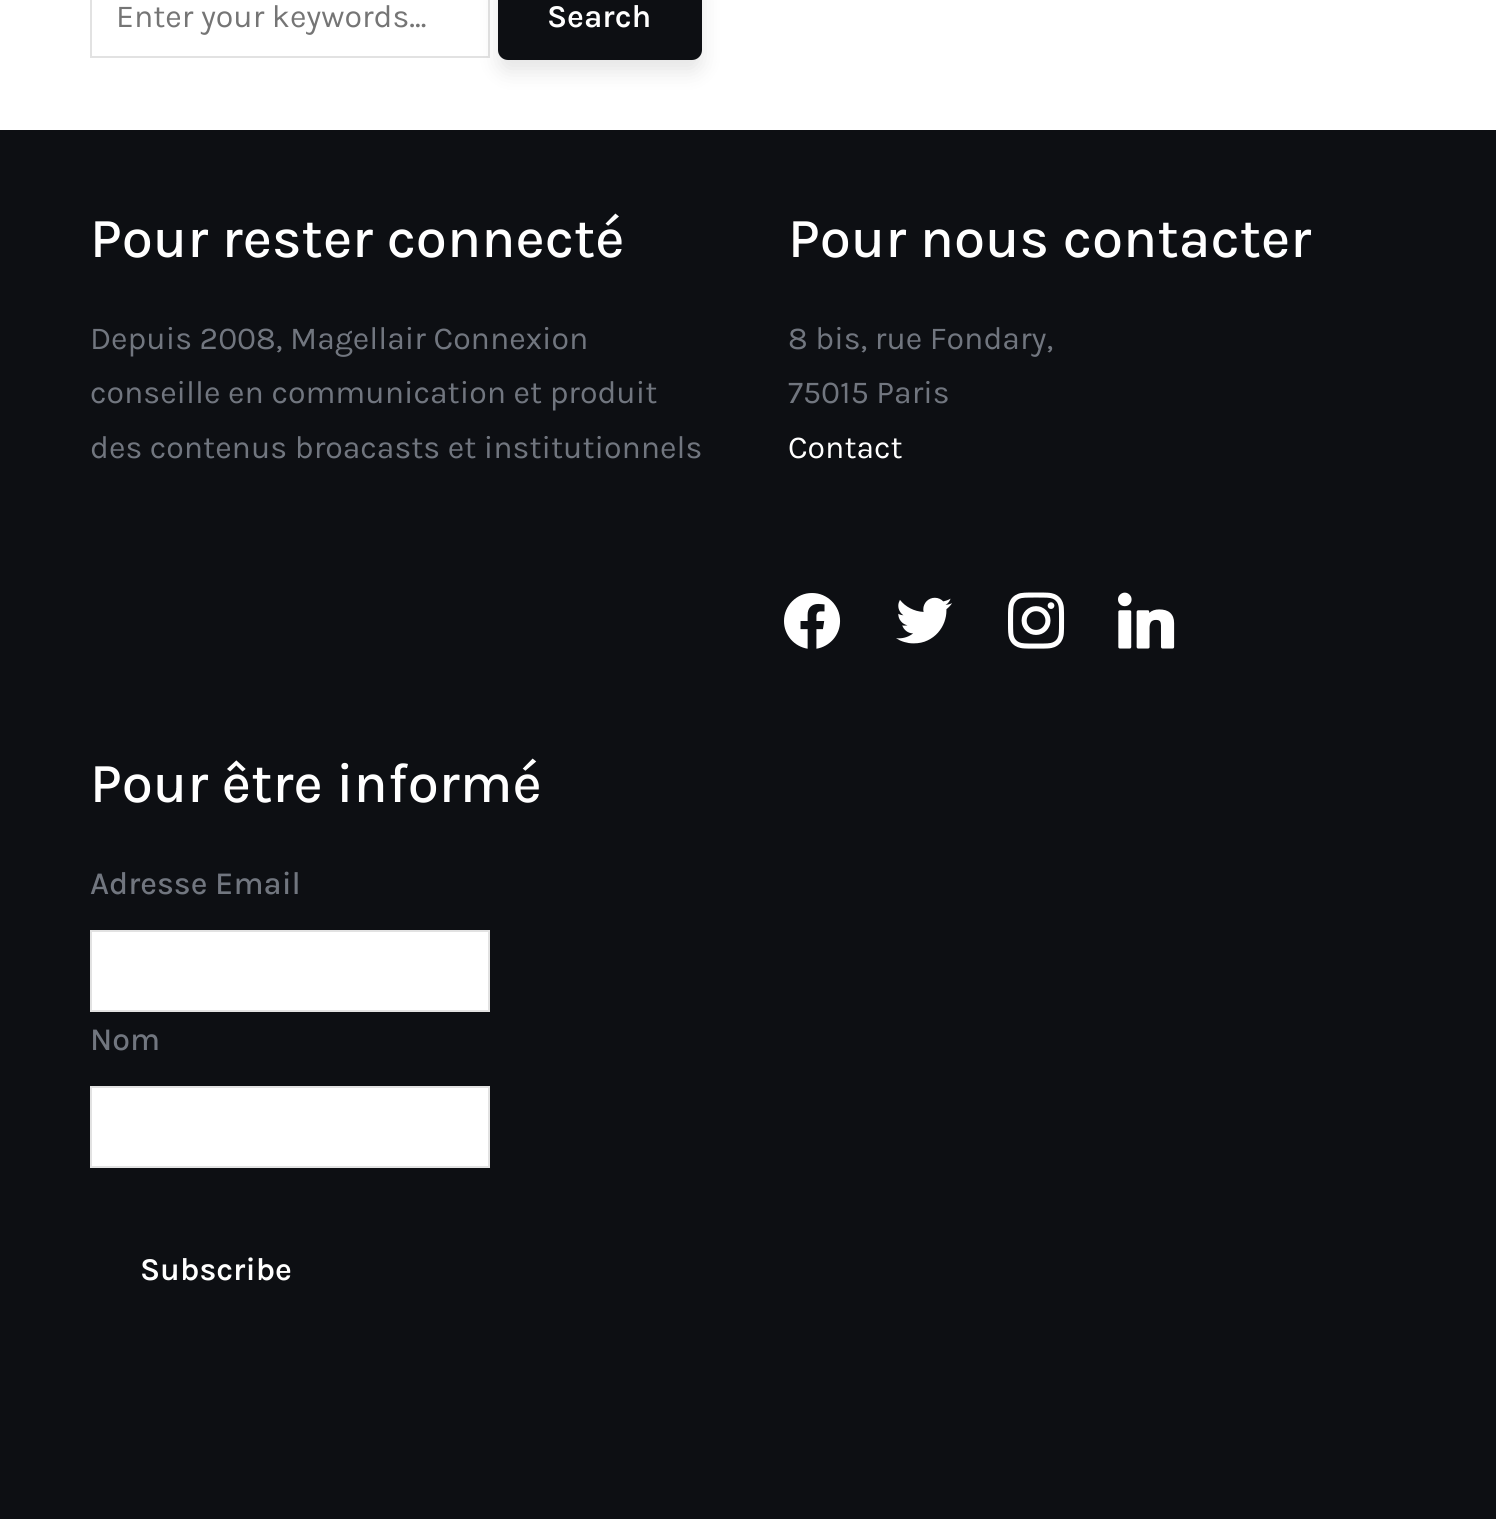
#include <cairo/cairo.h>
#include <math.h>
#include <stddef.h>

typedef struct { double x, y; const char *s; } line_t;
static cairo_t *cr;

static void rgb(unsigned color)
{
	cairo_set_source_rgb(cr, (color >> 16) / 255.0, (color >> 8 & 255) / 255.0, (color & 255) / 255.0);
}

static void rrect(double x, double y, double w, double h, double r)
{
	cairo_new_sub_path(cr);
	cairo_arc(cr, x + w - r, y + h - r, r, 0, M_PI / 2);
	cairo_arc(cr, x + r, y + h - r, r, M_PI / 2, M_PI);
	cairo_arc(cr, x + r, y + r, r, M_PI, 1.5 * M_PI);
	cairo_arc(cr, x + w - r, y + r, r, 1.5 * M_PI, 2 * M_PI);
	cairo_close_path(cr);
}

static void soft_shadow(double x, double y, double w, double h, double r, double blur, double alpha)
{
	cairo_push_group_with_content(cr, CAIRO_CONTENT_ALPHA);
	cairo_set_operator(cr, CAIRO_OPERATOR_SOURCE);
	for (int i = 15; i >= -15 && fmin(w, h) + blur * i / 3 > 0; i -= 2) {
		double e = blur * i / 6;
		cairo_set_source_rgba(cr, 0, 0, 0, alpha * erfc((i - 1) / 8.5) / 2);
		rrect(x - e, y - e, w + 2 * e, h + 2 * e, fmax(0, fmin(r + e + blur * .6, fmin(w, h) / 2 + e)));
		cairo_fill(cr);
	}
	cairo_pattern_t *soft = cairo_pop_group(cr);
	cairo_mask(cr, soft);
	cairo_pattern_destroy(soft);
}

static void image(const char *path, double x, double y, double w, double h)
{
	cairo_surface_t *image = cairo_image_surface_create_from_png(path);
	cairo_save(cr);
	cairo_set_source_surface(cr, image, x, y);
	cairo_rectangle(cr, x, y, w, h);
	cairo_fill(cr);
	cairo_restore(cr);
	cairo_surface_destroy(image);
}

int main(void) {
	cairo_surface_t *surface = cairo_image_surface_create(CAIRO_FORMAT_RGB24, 1496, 1519);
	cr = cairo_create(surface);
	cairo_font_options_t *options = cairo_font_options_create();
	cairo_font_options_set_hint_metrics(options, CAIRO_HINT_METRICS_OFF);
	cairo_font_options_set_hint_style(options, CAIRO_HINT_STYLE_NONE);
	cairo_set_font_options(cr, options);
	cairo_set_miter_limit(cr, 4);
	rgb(0xffffff);
	cairo_paint(cr);
	cairo_rectangle(cr, 91, -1, 398, 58);
	rgb(0xe2e2e2);
	cairo_stroke(cr);
	rgb(0x000000);
	soft_shadow(498, -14, 204, 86, 10, 10, 0.1);
	rgb(0x0d0f13);
	rrect(498, -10, 204, 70, 10);
	cairo_fill(cr);
	cairo_rectangle(cr, 0, 130, 1496, 1389);
	cairo_fill(cr);
	image("img/1.png", 784, 593, 57, 56);
	image("img/2.png", 896, 597, 56, 47);
	image("img/3.png", 1008, 592, 57, 57);
	image("img/4.png", 1118, 592, 57, 57);
	rgb(0xffffff);
	cairo_rectangle(cr, 91, 931, 398, 80);
	cairo_fill_preserve(cr);
	rgb(0xe2e2e2);
	cairo_stroke(cr);
	rgb(0xffffff);
	cairo_rectangle(cr, 91, 1087, 398, 80);
	cairo_fill_preserve(cr);
	rgb(0xe2e2e2);
	cairo_stroke(cr);
	cairo_select_font_face(cr, "Karla", CAIRO_FONT_SLANT_NORMAL, CAIRO_FONT_WEIGHT_NORMAL);
	cairo_set_font_size(cr, 32);
	rgb(0x757575);
	cairo_move_to(cr, 116, 27);
	cairo_show_text(cr, "Enter your keywords...");
	cairo_select_font_face(cr, "Karla SemiBold", CAIRO_FONT_SLANT_NORMAL, CAIRO_FONT_WEIGHT_NORMAL);
	rgb(0xffffff);
	cairo_move_to(cr, 547, 27);
	cairo_show_text(cr, "Search");
	cairo_select_font_face(cr, "Karla Medium", CAIRO_FONT_SLANT_NORMAL, CAIRO_FONT_WEIGHT_NORMAL);
	cairo_set_font_size(cr, 56);
	cairo_move_to(cr, 90, 257);
	cairo_show_text(cr, "Pour rester connecté");
	cairo_select_font_face(cr, "Karla", CAIRO_FONT_SLANT_NORMAL, CAIRO_FONT_WEIGHT_NORMAL);
	cairo_set_font_size(cr, 32);
	rgb(0x71767f);
	{
		static const line_t items[] = {
			{90, 349, "Depuis 2008, Magellair Connexion"},
			{90, 403, "conseille en communication et produit"},
			{90, 458, "des contenus broacasts et institutionnels"},
		};
		for (size_t i = 0; i < sizeof items / sizeof *items; i++) {
			cairo_move_to(cr, items[i].x, items[i].y);
			cairo_show_text(cr, items[i].s);
		}
	}
	cairo_select_font_face(cr, "Karla Medium", CAIRO_FONT_SLANT_NORMAL, CAIRO_FONT_WEIGHT_NORMAL);
	cairo_set_font_size(cr, 56);
	rgb(0xffffff);
	cairo_move_to(cr, 788, 257);
	cairo_show_text(cr, "Pour nous contacter");
	cairo_select_font_face(cr, "Karla", CAIRO_FONT_SLANT_NORMAL, CAIRO_FONT_WEIGHT_NORMAL);
	cairo_set_font_size(cr, 32);
	rgb(0x71767f);
	cairo_move_to(cr, 788, 349);
	cairo_show_text(cr, "8 bis, rue Fondary,");
	cairo_move_to(cr, 788, 403);
	cairo_show_text(cr, "75015 Paris");
	rgb(0xffffff);
	cairo_move_to(cr, 788, 458);
	cairo_show_text(cr, "Contact");
	cairo_select_font_face(cr, "Karla Medium", CAIRO_FONT_SLANT_NORMAL, CAIRO_FONT_WEIGHT_NORMAL);
	cairo_set_font_size(cr, 56);
	cairo_move_to(cr, 90, 802);
	cairo_show_text(cr, "Pour être informé");
	cairo_set_font_size(cr, 32);
	rgb(0x71767f);
	cairo_move_to(cr, 90, 894);
	cairo_show_text(cr, "Adresse Email");
	cairo_move_to(cr, 90, 1050);
	cairo_show_text(cr, "Nom");
	cairo_select_font_face(cr, "Karla SemiBold", CAIRO_FONT_SLANT_NORMAL, CAIRO_FONT_WEIGHT_NORMAL);
	rgb(0xffffff);
	cairo_move_to(cr, 140, 1280);
	cairo_show_text(cr, "Subscribe");
	cairo_surface_write_to_png(surface, "page.png");
	cairo_font_options_destroy(options);
	cairo_destroy(cr);
	cairo_surface_destroy(surface);
	return 0;
}
